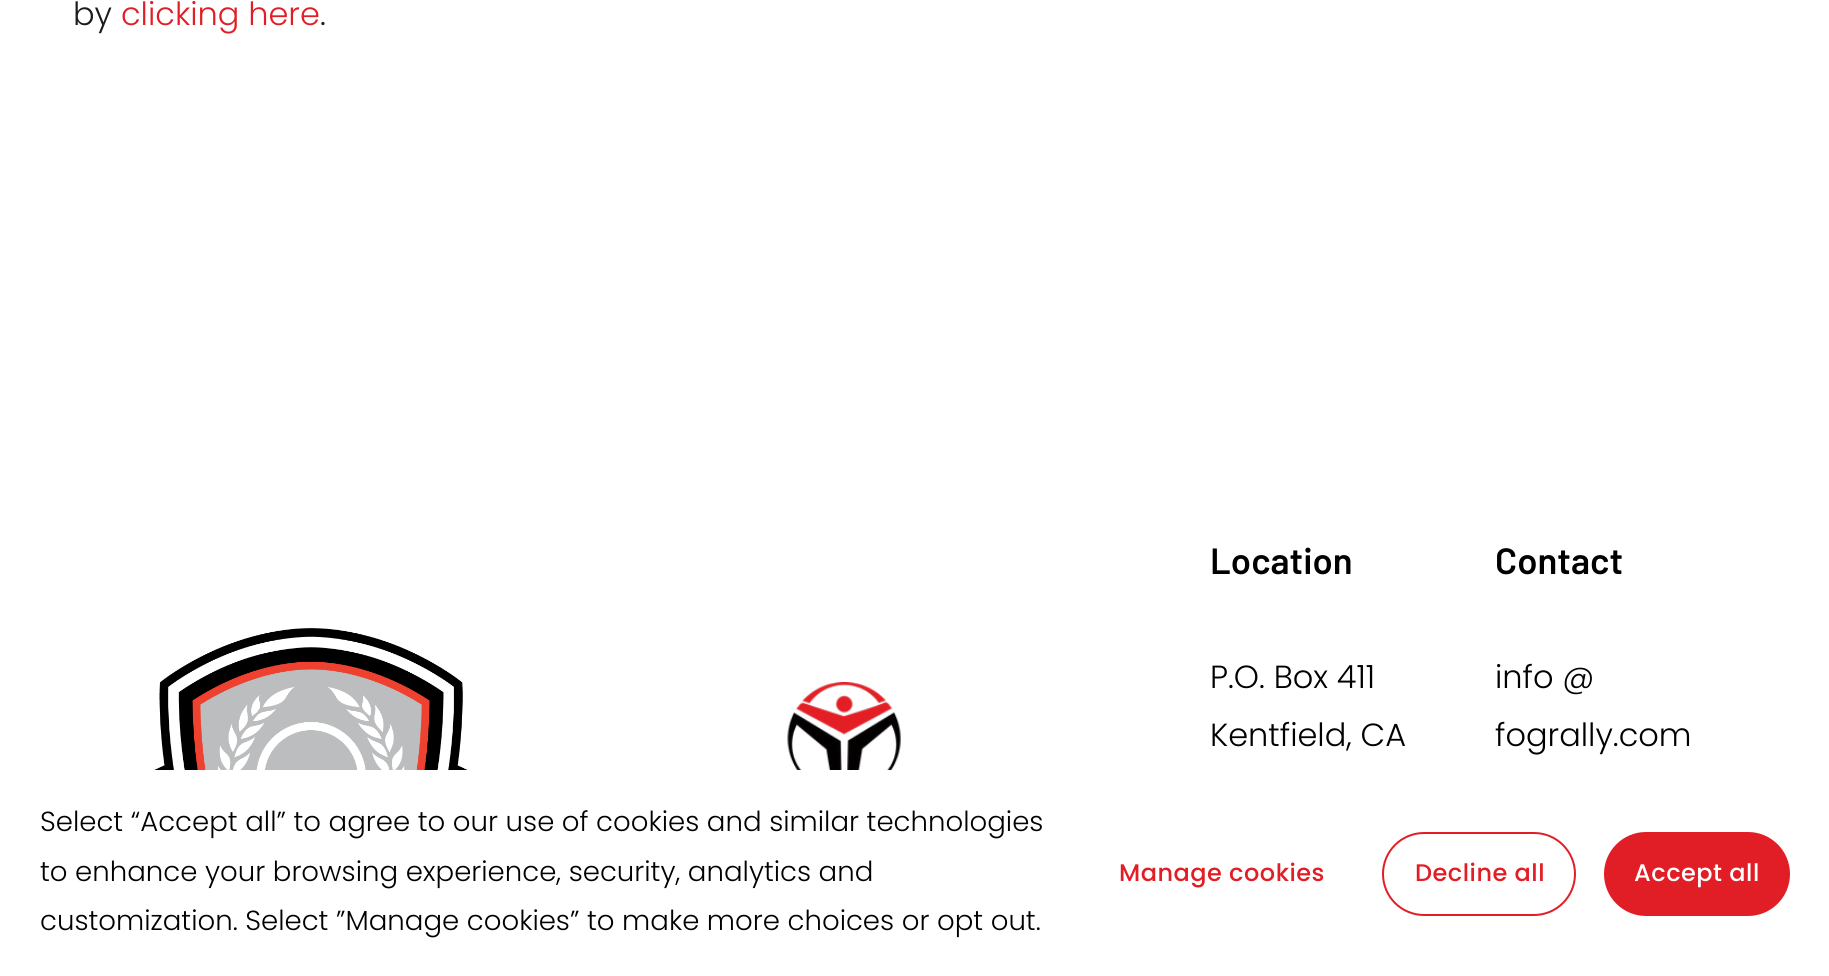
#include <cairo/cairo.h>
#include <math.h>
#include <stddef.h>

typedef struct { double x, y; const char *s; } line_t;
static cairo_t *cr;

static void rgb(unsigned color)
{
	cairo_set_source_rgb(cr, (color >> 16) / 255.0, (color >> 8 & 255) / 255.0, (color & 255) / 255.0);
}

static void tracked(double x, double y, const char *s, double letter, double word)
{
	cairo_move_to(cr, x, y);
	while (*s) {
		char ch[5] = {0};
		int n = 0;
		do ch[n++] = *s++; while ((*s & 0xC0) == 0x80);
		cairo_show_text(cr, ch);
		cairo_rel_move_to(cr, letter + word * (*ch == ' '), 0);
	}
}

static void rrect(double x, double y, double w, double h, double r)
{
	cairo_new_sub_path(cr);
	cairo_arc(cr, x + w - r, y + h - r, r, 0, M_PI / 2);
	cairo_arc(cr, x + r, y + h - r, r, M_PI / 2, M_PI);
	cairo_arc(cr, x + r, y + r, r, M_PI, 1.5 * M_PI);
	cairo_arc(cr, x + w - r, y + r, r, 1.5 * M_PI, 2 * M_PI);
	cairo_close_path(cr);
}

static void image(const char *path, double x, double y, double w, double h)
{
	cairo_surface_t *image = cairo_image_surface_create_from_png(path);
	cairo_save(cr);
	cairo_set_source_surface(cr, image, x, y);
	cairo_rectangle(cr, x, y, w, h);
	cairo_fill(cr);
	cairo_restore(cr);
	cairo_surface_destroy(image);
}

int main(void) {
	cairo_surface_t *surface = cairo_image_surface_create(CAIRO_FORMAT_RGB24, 1829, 976);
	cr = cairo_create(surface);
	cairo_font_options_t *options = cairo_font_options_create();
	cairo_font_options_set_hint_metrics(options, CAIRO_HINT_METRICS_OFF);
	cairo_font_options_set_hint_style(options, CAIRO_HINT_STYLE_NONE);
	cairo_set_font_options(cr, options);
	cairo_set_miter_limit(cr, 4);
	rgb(0xffffff);
	cairo_paint(cr);
	image("img/1.png", 154, 628, 314, 142);
	image("img/2.png", 787, 682, 114, 88);
	rrect(1383, 833, 192, 82, 41);
	rgb(0xe11e26);
	cairo_stroke(cr);
	rrect(1604, 832, 186, 84, 42);
	cairo_fill(cr);
	cairo_select_font_face(cr, "Poppins Light", CAIRO_FONT_SLANT_NORMAL, CAIRO_FONT_WEIGHT_NORMAL);
	cairo_set_font_size(cr, 32);
	rgb(0x1c1c1c);
	cairo_move_to(cr, 73, 25);
	cairo_show_text(cr, "by");
	rgb(0xe11e26);
	cairo_move_to(cr, 121, 25);
	cairo_show_text(cr, "clicking here");
	rgb(0x1c1c1c);
	cairo_move_to(cr, 320, 25);
	cairo_show_text(cr, ".");
	cairo_select_font_face(cr, "Barlow SemiBold", CAIRO_FONT_SLANT_NORMAL, CAIRO_FONT_WEIGHT_NORMAL);
	cairo_set_font_size(cr, 36.5);
	rgb(0x000000);
	cairo_move_to(cr, 1210, 574);
	cairo_show_text(cr, "Location");
	cairo_select_font_face(cr, "Poppins Light", CAIRO_FONT_SLANT_NORMAL, CAIRO_FONT_WEIGHT_NORMAL);
	cairo_set_font_size(cr, 32);
	cairo_move_to(cr, 1210, 688);
	cairo_show_text(cr, "P.O. Box 411");
	cairo_move_to(cr, 1210, 746);
	cairo_show_text(cr, "Kentfield, CA");
	cairo_select_font_face(cr, "Barlow SemiBold", CAIRO_FONT_SLANT_NORMAL, CAIRO_FONT_WEIGHT_NORMAL);
	cairo_set_font_size(cr, 36.5);
	cairo_move_to(cr, 1495, 574);
	cairo_show_text(cr, "Contact");
	cairo_select_font_face(cr, "Poppins Light", CAIRO_FONT_SLANT_NORMAL, CAIRO_FONT_WEIGHT_NORMAL);
	cairo_set_font_size(cr, 32);
	cairo_move_to(cr, 1495, 688);
	cairo_show_text(cr, "info @");
	cairo_move_to(cr, 1495, 746);
	cairo_show_text(cr, "fogrally.com");
	cairo_set_font_size(cr, 27.6);
	{
		static const line_t items[] = {
			{40, 831, "Select “Accept all” to agree to our use of cookies and similar technologies"},
			{40, 881, "to enhance your browsing experience, security, analytics and"},
			{40, 930, "customization. Select ”Manage cookies” to make more choices or opt out."},
		};
		for (size_t i = 0; i < sizeof items / sizeof *items; i++) {
			cairo_move_to(cr, items[i].x, items[i].y);
			cairo_show_text(cr, items[i].s);
		}
	}
	cairo_select_font_face(cr, "Poppins Medium", CAIRO_FONT_SLANT_NORMAL, CAIRO_FONT_WEIGHT_NORMAL);
	cairo_set_font_size(cr, 24);
	rgb(0xe11e26);
	tracked(1119, 881, "Manage cookies", 0.5, 0);
	tracked(1415, 881, "Decline all", 0.5, 0);
	rgb(0xffffff);
	tracked(1634, 881, "Accept all", 0.5, 0);
	cairo_surface_write_to_png(surface, "page.png");
	cairo_font_options_destroy(options);
	cairo_destroy(cr);
	cairo_surface_destroy(surface);
	return 0;
}
